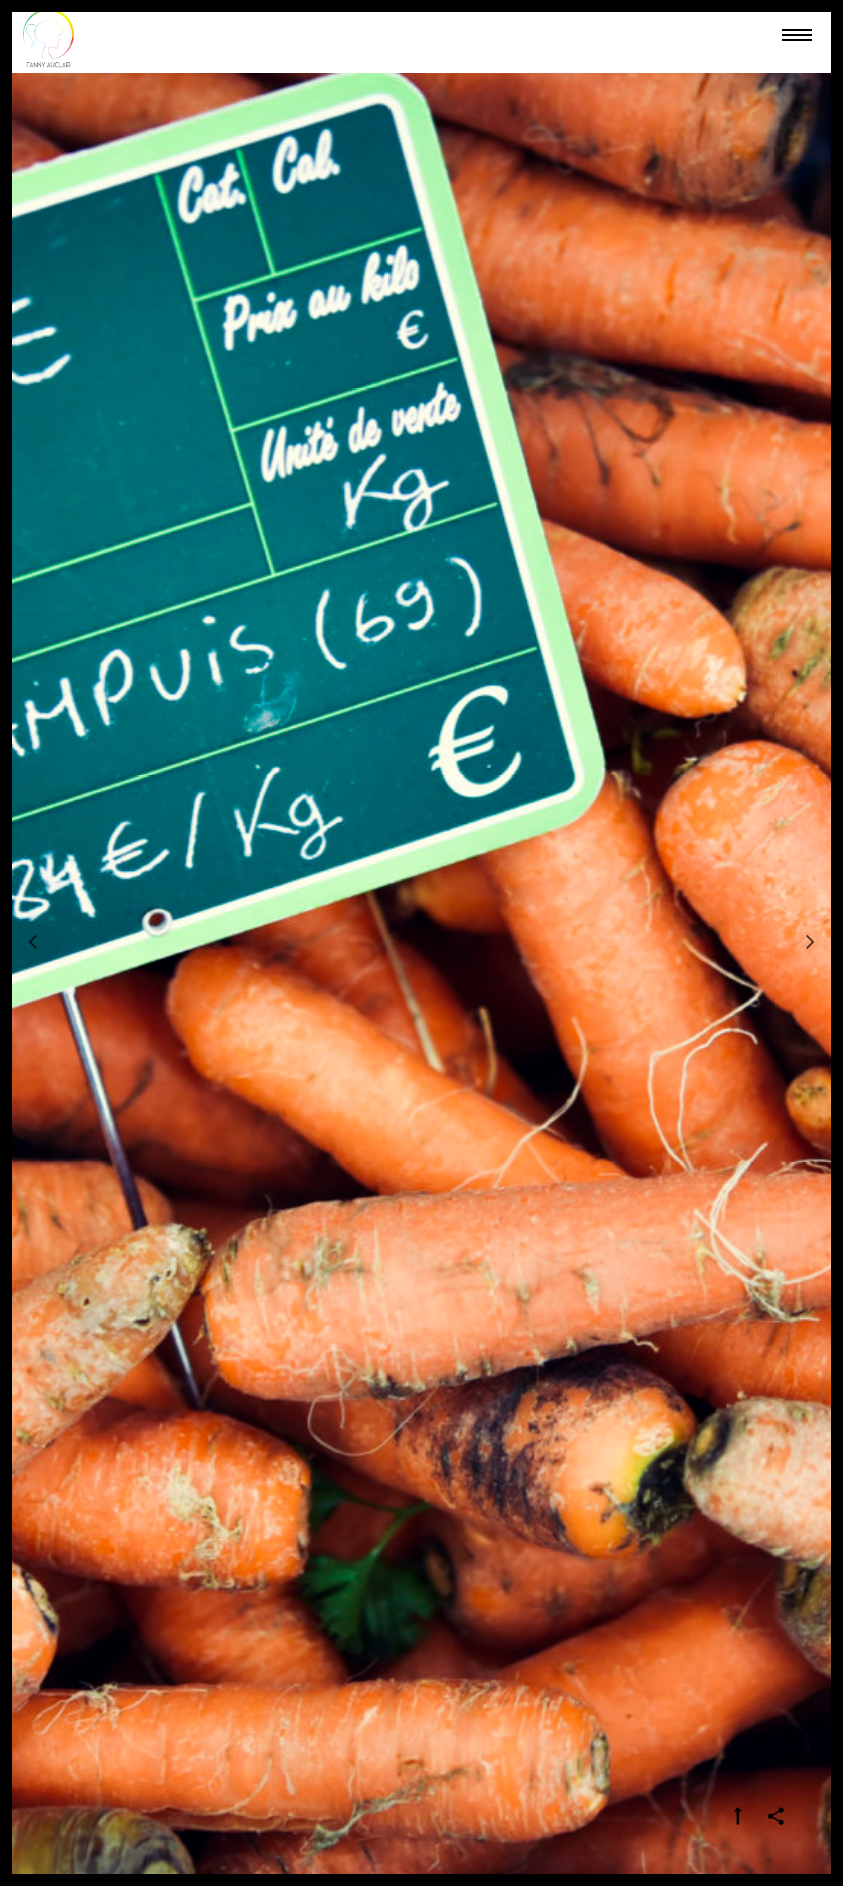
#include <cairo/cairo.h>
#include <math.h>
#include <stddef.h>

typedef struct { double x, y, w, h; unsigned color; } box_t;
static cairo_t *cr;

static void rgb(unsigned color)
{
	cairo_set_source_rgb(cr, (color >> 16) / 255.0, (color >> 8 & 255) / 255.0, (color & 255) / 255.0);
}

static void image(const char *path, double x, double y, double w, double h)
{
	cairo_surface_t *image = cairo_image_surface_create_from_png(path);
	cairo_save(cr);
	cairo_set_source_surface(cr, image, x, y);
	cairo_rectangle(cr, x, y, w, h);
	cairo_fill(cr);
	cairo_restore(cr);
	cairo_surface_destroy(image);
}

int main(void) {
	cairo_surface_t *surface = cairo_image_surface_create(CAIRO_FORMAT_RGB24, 843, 1886);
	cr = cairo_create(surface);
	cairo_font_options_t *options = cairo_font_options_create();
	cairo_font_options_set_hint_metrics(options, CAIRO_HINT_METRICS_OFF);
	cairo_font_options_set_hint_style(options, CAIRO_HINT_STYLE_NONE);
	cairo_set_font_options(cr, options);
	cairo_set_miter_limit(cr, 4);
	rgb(0xffffff);
	cairo_paint(cr);
	{
		static const box_t items[] = {
			{0, 0, 12, 1886, 0x000000},
			{12, 0, 819, 12, 0x000000},
			{831, 0, 12, 1874, 0x000000},
			{12, 1874, 831, 12, 0x000000},
		};
		for (size_t i = 0; i < sizeof items / sizeof *items; i++) {
			rgb(items[i].color);
			cairo_rectangle(cr, items[i].x, items[i].y, items[i].w, items[i].h);
			cairo_fill(cr);
		}
	}
	image("img/1.png", 23, 12, 51, 56);
	{
		static const box_t items[] = {
			{782, 34, 30, 2, 0x000000},
			{782, 29, 30, 2, 0x000000},
			{782, 39, 30, 2, 0x000000},
		};
		for (size_t i = 0; i < sizeof items / sizeof *items; i++) {
			rgb(items[i].color);
			cairo_rectangle(cr, items[i].x, items[i].y, items[i].w, items[i].h);
			cairo_fill(cr);
		}
	}
	image("img/2.png", 12, 73, 819, 1801);
	image("img/3.png", 28, 935, 9, 14);
	image("img/4.png", 806, 935, 9, 14);
	image("img/5.png", 734, 1807, 8, 18);
	image("img/6.png", 768, 1807, 16, 18);
	cairo_surface_write_to_png(surface, "page.png");
	cairo_font_options_destroy(options);
	cairo_destroy(cr);
	cairo_surface_destroy(surface);
	return 0;
}
